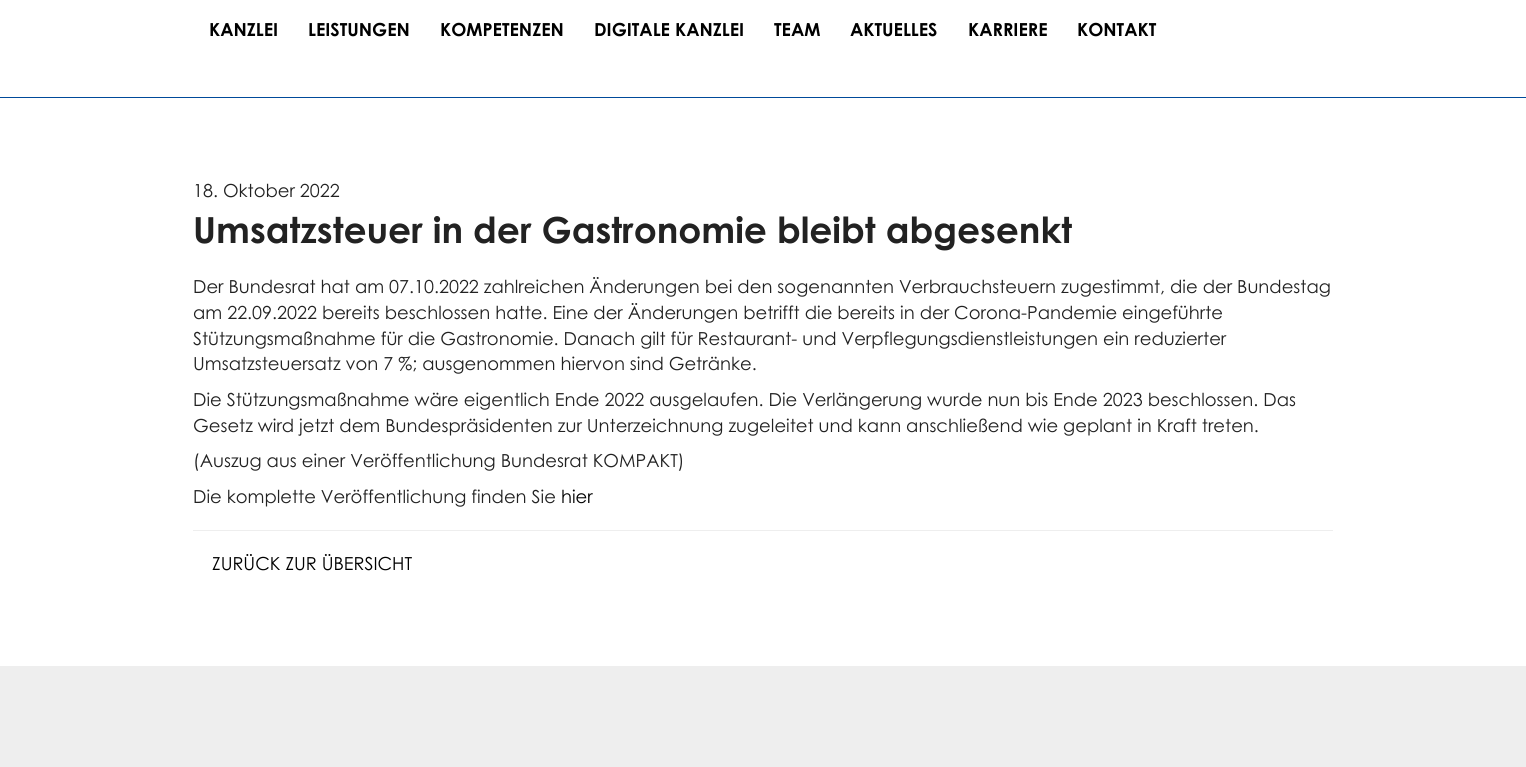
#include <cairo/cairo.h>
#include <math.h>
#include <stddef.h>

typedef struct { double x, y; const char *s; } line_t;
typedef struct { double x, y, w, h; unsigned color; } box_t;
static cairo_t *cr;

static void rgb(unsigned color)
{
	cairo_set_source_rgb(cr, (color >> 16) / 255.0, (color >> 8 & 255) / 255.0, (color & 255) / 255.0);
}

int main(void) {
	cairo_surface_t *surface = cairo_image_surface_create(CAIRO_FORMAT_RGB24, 1526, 767);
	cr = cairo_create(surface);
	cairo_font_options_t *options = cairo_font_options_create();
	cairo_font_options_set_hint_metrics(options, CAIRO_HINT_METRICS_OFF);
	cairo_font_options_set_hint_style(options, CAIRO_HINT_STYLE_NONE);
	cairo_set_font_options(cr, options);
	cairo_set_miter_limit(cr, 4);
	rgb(0xffffff);
	cairo_paint(cr);
	{
		static const box_t items[] = {
			{0, 97, 1526, 1, 0x004a9a},
			{193, 530, 1140, 1, 0xeeeeee},
			{0, 666, 1526, 101, 0xeeeeee},
		};
		for (size_t i = 0; i < sizeof items / sizeof *items; i++) {
			rgb(items[i].color);
			cairo_rectangle(cr, items[i].x, items[i].y, items[i].w, items[i].h);
			cairo_fill(cr);
		}
	}
	cairo_select_font_face(cr, "Century Gothic", CAIRO_FONT_SLANT_NORMAL, CAIRO_FONT_WEIGHT_BOLD);
	cairo_set_font_size(cr, 18);
	rgb(0x000000);
	{
		static const line_t items[] = {
			{209, 36, "KANZLEI"},
			{308, 36, "LEISTUNGEN"},
			{440, 36, "KOMPETENZEN"},
			{594, 36, "DIGITALE KANZLEI"},
			{774, 36, "TEAM"},
			{850, 36, "AKTUELLES"},
			{968, 36, "KARRIERE"},
			{1077, 36, "KONTAKT"},
		};
		for (size_t i = 0; i < sizeof items / sizeof *items; i++) {
			cairo_move_to(cr, items[i].x, items[i].y);
			cairo_show_text(cr, items[i].s);
		}
	}
	cairo_select_font_face(cr, "Century Gothic", CAIRO_FONT_SLANT_NORMAL, CAIRO_FONT_WEIGHT_NORMAL);
	rgb(0x222222);
	cairo_move_to(cr, 193, 197);
	cairo_show_text(cr, "18. Oktober 2022");
	cairo_select_font_face(cr, "Century Gothic", CAIRO_FONT_SLANT_NORMAL, CAIRO_FONT_WEIGHT_BOLD);
	cairo_set_font_size(cr, 36);
	cairo_move_to(cr, 193, 243);
	cairo_show_text(cr, "Umsatzsteuer in der Gastronomie bleibt abgesenkt");
	cairo_select_font_face(cr, "Century Gothic", CAIRO_FONT_SLANT_NORMAL, CAIRO_FONT_WEIGHT_NORMAL);
	cairo_set_font_size(cr, 18);
	{
		static const line_t items[] = {
			{193, 293, "Der Bundesrat hat am 07.10.2022 zahlreichen Änderungen bei den sogenannten Verbrauchsteuern zugestimmt, die der Bundestag"},
			{193, 319, "am 22.09.2022 bereits beschlossen hatte. Eine der Änderungen betrifft die bereits in der Corona-Pandemie eingeführte"},
			{193, 345, "Stützungsmaßnahme für die Gastronomie. Danach gilt für Restaurant- und Verpflegungsdienstleistungen ein reduzierter"},
			{193, 370, "Umsatzsteuersatz von 7 %; ausgenommen hiervon sind Getränke."},
			{193, 406, "Die Stützungsmaßnahme wäre eigentlich Ende 2022 ausgelaufen. Die Verlängerung wurde nun bis Ende 2023 beschlossen. Das"},
			{193, 432, "Gesetz wird jetzt dem Bundespräsidenten zur Unterzeichnung zugeleitet und kann anschließend wie geplant in Kraft treten."},
			{193, 467, "(Auszug aus einer Veröffentlichung Bundesrat KOMPAKT)"},
			{193, 503, "Die komplette Veröffentlichung finden Sie"},
		};
		for (size_t i = 0; i < sizeof items / sizeof *items; i++) {
			cairo_move_to(cr, items[i].x, items[i].y);
			cairo_show_text(cr, items[i].s);
		}
	}
	rgb(0x000000);
	cairo_move_to(cr, 561, 503);
	cairo_show_text(cr, "hier");
	cairo_move_to(cr, 212, 570);
	cairo_show_text(cr, "ZURÜCK ZUR ÜBERSICHT");
	cairo_surface_write_to_png(surface, "page.png");
	cairo_font_options_destroy(options);
	cairo_destroy(cr);
	cairo_surface_destroy(surface);
	return 0;
}
